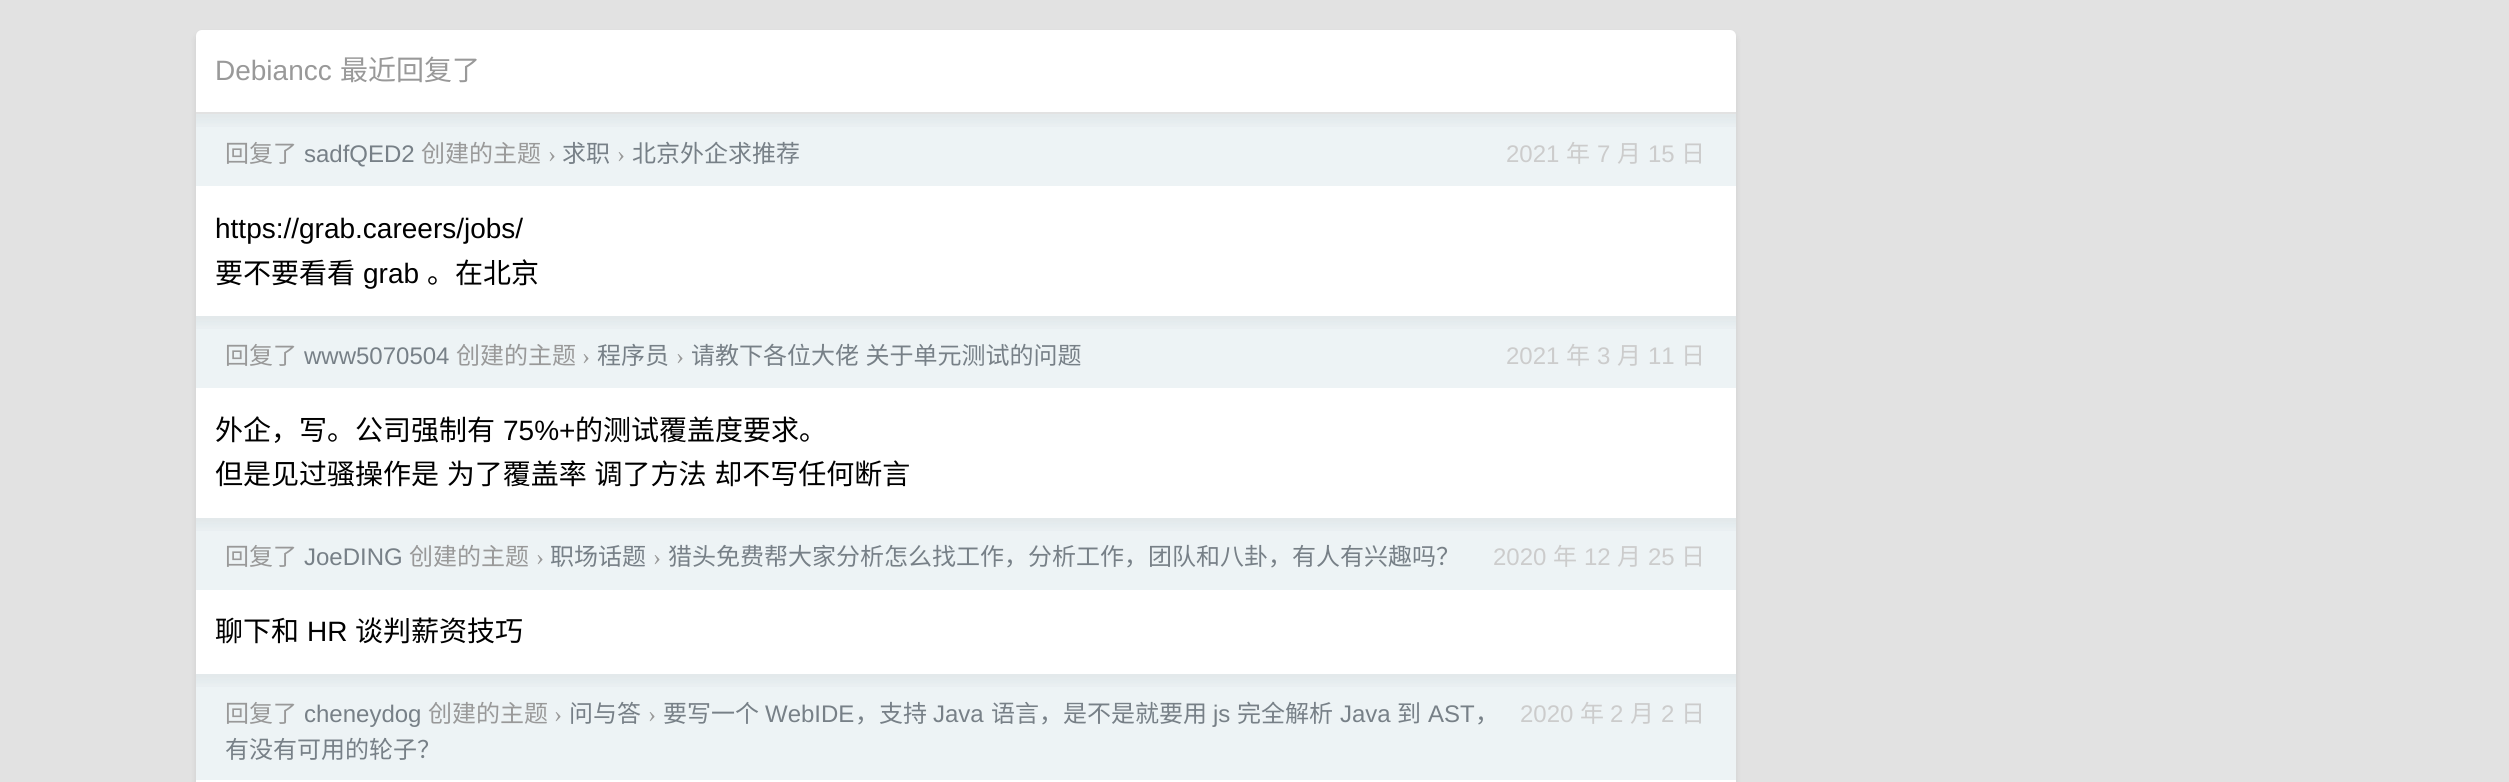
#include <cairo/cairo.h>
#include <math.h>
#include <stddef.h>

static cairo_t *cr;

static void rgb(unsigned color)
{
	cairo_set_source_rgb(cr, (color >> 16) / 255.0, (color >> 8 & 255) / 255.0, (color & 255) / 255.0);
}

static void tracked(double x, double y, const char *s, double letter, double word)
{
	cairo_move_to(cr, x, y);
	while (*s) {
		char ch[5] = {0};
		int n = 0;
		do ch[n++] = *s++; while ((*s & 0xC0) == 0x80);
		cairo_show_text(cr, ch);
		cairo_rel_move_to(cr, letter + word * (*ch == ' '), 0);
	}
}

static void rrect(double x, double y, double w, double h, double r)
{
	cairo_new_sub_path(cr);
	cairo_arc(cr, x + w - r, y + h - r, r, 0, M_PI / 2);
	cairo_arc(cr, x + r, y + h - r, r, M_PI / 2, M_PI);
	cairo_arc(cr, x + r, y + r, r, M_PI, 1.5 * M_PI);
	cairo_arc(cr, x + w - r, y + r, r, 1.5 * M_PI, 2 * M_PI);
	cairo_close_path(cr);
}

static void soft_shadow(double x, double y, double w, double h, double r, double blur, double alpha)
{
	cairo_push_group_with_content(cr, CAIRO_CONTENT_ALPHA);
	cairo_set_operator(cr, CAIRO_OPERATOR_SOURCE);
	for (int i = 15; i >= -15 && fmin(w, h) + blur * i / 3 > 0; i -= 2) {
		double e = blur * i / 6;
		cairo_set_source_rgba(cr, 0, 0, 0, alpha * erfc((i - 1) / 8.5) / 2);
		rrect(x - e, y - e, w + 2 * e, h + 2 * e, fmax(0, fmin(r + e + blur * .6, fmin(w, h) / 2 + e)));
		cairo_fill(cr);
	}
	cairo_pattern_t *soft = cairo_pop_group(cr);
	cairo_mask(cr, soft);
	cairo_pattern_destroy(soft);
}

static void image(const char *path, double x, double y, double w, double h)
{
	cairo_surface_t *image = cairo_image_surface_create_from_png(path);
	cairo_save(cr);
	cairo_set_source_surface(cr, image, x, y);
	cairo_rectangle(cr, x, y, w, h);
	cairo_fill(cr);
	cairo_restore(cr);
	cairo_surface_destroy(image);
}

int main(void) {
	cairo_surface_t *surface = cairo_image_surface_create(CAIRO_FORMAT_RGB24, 2509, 782);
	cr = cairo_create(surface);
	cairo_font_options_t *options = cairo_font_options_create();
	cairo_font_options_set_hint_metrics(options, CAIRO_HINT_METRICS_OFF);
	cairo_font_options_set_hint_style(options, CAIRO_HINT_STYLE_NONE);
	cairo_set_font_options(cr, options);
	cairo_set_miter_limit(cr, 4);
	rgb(0xe2e2e2);
	cairo_paint(cr);
	rgb(0x000000);
	soft_shadow(196, 34, 1540, 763, 6, 3, 0.1);
	rgb(0xffffff);
	rrect(196, 30, 1540, 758, 6);
	cairo_fill(cr);
	rgb(0xe2e2e2);
	cairo_rectangle(cr, 196, 112, 1540, 2);
	cairo_fill(cr);
	rgb(0xedf3f5);
	cairo_rectangle(cr, 196, 114, 1540, 72);
	cairo_fill(cr);
	image("img/1.png", 196, 114, 1540, 13);
	cairo_rectangle(cr, 196, 316, 1540, 72);
	cairo_fill(cr);
	image("img/1.png", 196, 316, 1540, 13);
	cairo_rectangle(cr, 196, 518, 1540, 72);
	cairo_fill(cr);
	image("img/1.png", 196, 518, 1540, 13);
	cairo_rectangle(cr, 196, 674, 1540, 106);
	cairo_fill(cr);
	image("img/1.png", 196, 674, 1540, 13);
	cairo_select_font_face(cr, "Liberation Sans", CAIRO_FONT_SLANT_NORMAL, CAIRO_FONT_WEIGHT_NORMAL);
	cairo_set_font_size(cr, 28);
	rgb(0x999999);
	cairo_move_to(cr, 215, 80);
	cairo_show_text(cr, "Debiancc");
	cairo_select_font_face(cr, "Noto Sans CJK SC", CAIRO_FONT_SLANT_NORMAL, CAIRO_FONT_WEIGHT_NORMAL);
	cairo_move_to(cr, 340, 80);
	cairo_show_text(cr, "最近回复了");
	cairo_set_font_size(cr, 24);
	cairo_move_to(cr, 225, 162);
	cairo_show_text(cr, "回复了");
	cairo_select_font_face(cr, "Liberation Sans", CAIRO_FONT_SLANT_NORMAL, CAIRO_FONT_WEIGHT_NORMAL);
	rgb(0x778087);
	cairo_move_to(cr, 304, 162);
	cairo_show_text(cr, "sadfQED2");
	cairo_select_font_face(cr, "Noto Sans CJK SC", CAIRO_FONT_SLANT_NORMAL, CAIRO_FONT_WEIGHT_NORMAL);
	rgb(0x999999);
	cairo_move_to(cr, 421, 162);
	cairo_show_text(cr, "创建的主题");
	cairo_select_font_face(cr, "Liberation Serif", CAIRO_FONT_SLANT_NORMAL, CAIRO_FONT_WEIGHT_NORMAL);
	cairo_move_to(cr, 548, 162);
	cairo_show_text(cr, "›");
	cairo_select_font_face(cr, "Noto Sans CJK SC", CAIRO_FONT_SLANT_NORMAL, CAIRO_FONT_WEIGHT_NORMAL);
	rgb(0x778087);
	cairo_move_to(cr, 562, 162);
	cairo_show_text(cr, "求职");
	cairo_select_font_face(cr, "Liberation Serif", CAIRO_FONT_SLANT_NORMAL, CAIRO_FONT_WEIGHT_NORMAL);
	rgb(0x999999);
	cairo_move_to(cr, 617, 162);
	cairo_show_text(cr, "›");
	cairo_select_font_face(cr, "Noto Sans CJK SC", CAIRO_FONT_SLANT_NORMAL, CAIRO_FONT_WEIGHT_NORMAL);
	rgb(0x778087);
	cairo_move_to(cr, 632, 162);
	cairo_show_text(cr, "北京外企求推荐");
	cairo_select_font_face(cr, "Liberation Sans", CAIRO_FONT_SLANT_NORMAL, CAIRO_FONT_WEIGHT_NORMAL);
	rgb(0xcccccc);
	cairo_move_to(cr, 1506, 162);
	cairo_show_text(cr, "2021");
	cairo_select_font_face(cr, "Noto Sans CJK SC", CAIRO_FONT_SLANT_NORMAL, CAIRO_FONT_WEIGHT_NORMAL);
	cairo_move_to(cr, 1566, 162);
	cairo_show_text(cr, "年");
	cairo_select_font_face(cr, "Liberation Sans", CAIRO_FONT_SLANT_NORMAL, CAIRO_FONT_WEIGHT_NORMAL);
	cairo_move_to(cr, 1597, 162);
	cairo_show_text(cr, "7");
	cairo_select_font_face(cr, "Noto Sans CJK SC", CAIRO_FONT_SLANT_NORMAL, CAIRO_FONT_WEIGHT_NORMAL);
	cairo_move_to(cr, 1617, 162);
	cairo_show_text(cr, "月");
	cairo_select_font_face(cr, "Liberation Sans", CAIRO_FONT_SLANT_NORMAL, CAIRO_FONT_WEIGHT_NORMAL);
	cairo_move_to(cr, 1648, 162);
	cairo_show_text(cr, "15");
	cairo_select_font_face(cr, "Noto Sans CJK SC", CAIRO_FONT_SLANT_NORMAL, CAIRO_FONT_WEIGHT_NORMAL);
	cairo_move_to(cr, 1681, 162);
	cairo_show_text(cr, "日");
	cairo_select_font_face(cr, "Liberation Sans", CAIRO_FONT_SLANT_NORMAL, CAIRO_FONT_WEIGHT_NORMAL);
	cairo_set_font_size(cr, 28);
	rgb(0x000000);
	cairo_move_to(cr, 215, 238);
	cairo_show_text(cr, "https://grab.careers/jobs/");
	cairo_select_font_face(cr, "Noto Sans CJK SC", CAIRO_FONT_SLANT_NORMAL, CAIRO_FONT_WEIGHT_NORMAL);
	cairo_move_to(cr, 215, 283);
	cairo_show_text(cr, "要不要看看");
	cairo_select_font_face(cr, "Liberation Sans", CAIRO_FONT_SLANT_NORMAL, CAIRO_FONT_WEIGHT_NORMAL);
	cairo_move_to(cr, 363, 283);
	cairo_show_text(cr, "grab");
	cairo_select_font_face(cr, "Noto Sans CJK SC", CAIRO_FONT_SLANT_NORMAL, CAIRO_FONT_WEIGHT_NORMAL);
	cairo_move_to(cr, 427, 283);
	cairo_show_text(cr, "。在北京");
	cairo_set_font_size(cr, 24);
	rgb(0x999999);
	cairo_move_to(cr, 225, 364);
	cairo_show_text(cr, "回复了");
	cairo_select_font_face(cr, "Liberation Sans", CAIRO_FONT_SLANT_NORMAL, CAIRO_FONT_WEIGHT_NORMAL);
	rgb(0x778087);
	cairo_move_to(cr, 304, 364);
	cairo_show_text(cr, "www5070504");
	cairo_select_font_face(cr, "Noto Sans CJK SC", CAIRO_FONT_SLANT_NORMAL, CAIRO_FONT_WEIGHT_NORMAL);
	rgb(0x999999);
	cairo_move_to(cr, 456, 364);
	cairo_show_text(cr, "创建的主题");
	cairo_select_font_face(cr, "Liberation Serif", CAIRO_FONT_SLANT_NORMAL, CAIRO_FONT_WEIGHT_NORMAL);
	cairo_move_to(cr, 582, 364);
	cairo_show_text(cr, "›");
	cairo_select_font_face(cr, "Noto Sans CJK SC", CAIRO_FONT_SLANT_NORMAL, CAIRO_FONT_WEIGHT_NORMAL);
	rgb(0x778087);
	cairo_move_to(cr, 597, 364);
	cairo_show_text(cr, "程序员");
	cairo_select_font_face(cr, "Liberation Serif", CAIRO_FONT_SLANT_NORMAL, CAIRO_FONT_WEIGHT_NORMAL);
	rgb(0x999999);
	cairo_move_to(cr, 676, 364);
	cairo_show_text(cr, "›");
	cairo_select_font_face(cr, "Noto Sans CJK SC", CAIRO_FONT_SLANT_NORMAL, CAIRO_FONT_WEIGHT_NORMAL);
	rgb(0x778087);
	tracked(691, 364, "请教下各位大佬 关于单元测试的问题", 0, 1);
	cairo_select_font_face(cr, "Liberation Sans", CAIRO_FONT_SLANT_NORMAL, CAIRO_FONT_WEIGHT_NORMAL);
	rgb(0xcccccc);
	cairo_move_to(cr, 1506, 364);
	cairo_show_text(cr, "2021");
	cairo_select_font_face(cr, "Noto Sans CJK SC", CAIRO_FONT_SLANT_NORMAL, CAIRO_FONT_WEIGHT_NORMAL);
	cairo_move_to(cr, 1566, 364);
	cairo_show_text(cr, "年");
	cairo_select_font_face(cr, "Liberation Sans", CAIRO_FONT_SLANT_NORMAL, CAIRO_FONT_WEIGHT_NORMAL);
	cairo_move_to(cr, 1597, 364);
	cairo_show_text(cr, "3");
	cairo_select_font_face(cr, "Noto Sans CJK SC", CAIRO_FONT_SLANT_NORMAL, CAIRO_FONT_WEIGHT_NORMAL);
	cairo_move_to(cr, 1617, 364);
	cairo_show_text(cr, "月");
	cairo_select_font_face(cr, "Liberation Sans", CAIRO_FONT_SLANT_NORMAL, CAIRO_FONT_WEIGHT_NORMAL);
	cairo_move_to(cr, 1648, 364);
	cairo_show_text(cr, "11");
	cairo_select_font_face(cr, "Noto Sans CJK SC", CAIRO_FONT_SLANT_NORMAL, CAIRO_FONT_WEIGHT_NORMAL);
	cairo_move_to(cr, 1681, 364);
	cairo_show_text(cr, "日");
	cairo_set_font_size(cr, 28);
	rgb(0x000000);
	cairo_move_to(cr, 215, 440);
	cairo_show_text(cr, "外企，写。公司强制有");
	cairo_select_font_face(cr, "Liberation Sans", CAIRO_FONT_SLANT_NORMAL, CAIRO_FONT_WEIGHT_NORMAL);
	cairo_move_to(cr, 503, 440);
	cairo_show_text(cr, "75%+");
	cairo_select_font_face(cr, "Noto Sans CJK SC", CAIRO_FONT_SLANT_NORMAL, CAIRO_FONT_WEIGHT_NORMAL);
	cairo_move_to(cr, 575, 440);
	cairo_show_text(cr, "的测试覆盖度要求。");
	tracked(215, 484, "但是见过骚操作是 为了覆盖率 调了方法 却不写任何断言", 0, 1.5);
	cairo_set_font_size(cr, 24);
	rgb(0x999999);
	cairo_move_to(cr, 225, 565);
	cairo_show_text(cr, "回复了");
	cairo_select_font_face(cr, "Liberation Sans", CAIRO_FONT_SLANT_NORMAL, CAIRO_FONT_WEIGHT_NORMAL);
	rgb(0x778087);
	cairo_move_to(cr, 304, 565);
	cairo_show_text(cr, "JoeDING");
	cairo_select_font_face(cr, "Noto Sans CJK SC", CAIRO_FONT_SLANT_NORMAL, CAIRO_FONT_WEIGHT_NORMAL);
	rgb(0x999999);
	cairo_move_to(cr, 409, 565);
	cairo_show_text(cr, "创建的主题");
	cairo_select_font_face(cr, "Liberation Serif", CAIRO_FONT_SLANT_NORMAL, CAIRO_FONT_WEIGHT_NORMAL);
	cairo_move_to(cr, 536, 565);
	cairo_show_text(cr, "›");
	cairo_select_font_face(cr, "Noto Sans CJK SC", CAIRO_FONT_SLANT_NORMAL, CAIRO_FONT_WEIGHT_NORMAL);
	rgb(0x778087);
	cairo_move_to(cr, 550, 565);
	cairo_show_text(cr, "职场话题");
	cairo_select_font_face(cr, "Liberation Serif", CAIRO_FONT_SLANT_NORMAL, CAIRO_FONT_WEIGHT_NORMAL);
	rgb(0x999999);
	cairo_move_to(cr, 653, 565);
	cairo_show_text(cr, "›");
	cairo_select_font_face(cr, "Noto Sans CJK SC", CAIRO_FONT_SLANT_NORMAL, CAIRO_FONT_WEIGHT_NORMAL);
	rgb(0x778087);
	cairo_move_to(cr, 668, 565);
	cairo_show_text(cr, "猎头免费帮大家分析怎么找工作，分析工作，团队和八卦，有人有兴趣吗？");
	cairo_select_font_face(cr, "Liberation Sans", CAIRO_FONT_SLANT_NORMAL, CAIRO_FONT_WEIGHT_NORMAL);
	rgb(0xcccccc);
	cairo_move_to(cr, 1493, 565);
	cairo_show_text(cr, "2020");
	cairo_select_font_face(cr, "Noto Sans CJK SC", CAIRO_FONT_SLANT_NORMAL, CAIRO_FONT_WEIGHT_NORMAL);
	cairo_move_to(cr, 1553, 565);
	cairo_show_text(cr, "年");
	cairo_select_font_face(cr, "Liberation Sans", CAIRO_FONT_SLANT_NORMAL, CAIRO_FONT_WEIGHT_NORMAL);
	cairo_move_to(cr, 1584, 565);
	cairo_show_text(cr, "12");
	cairo_select_font_face(cr, "Noto Sans CJK SC", CAIRO_FONT_SLANT_NORMAL, CAIRO_FONT_WEIGHT_NORMAL);
	cairo_move_to(cr, 1617, 565);
	cairo_show_text(cr, "月");
	cairo_select_font_face(cr, "Liberation Sans", CAIRO_FONT_SLANT_NORMAL, CAIRO_FONT_WEIGHT_NORMAL);
	cairo_move_to(cr, 1648, 565);
	cairo_show_text(cr, "25");
	cairo_select_font_face(cr, "Noto Sans CJK SC", CAIRO_FONT_SLANT_NORMAL, CAIRO_FONT_WEIGHT_NORMAL);
	cairo_move_to(cr, 1681, 565);
	cairo_show_text(cr, "日");
	cairo_set_font_size(cr, 28);
	rgb(0x000000);
	cairo_move_to(cr, 215, 641);
	cairo_show_text(cr, "聊下和");
	cairo_select_font_face(cr, "Liberation Sans", CAIRO_FONT_SLANT_NORMAL, CAIRO_FONT_WEIGHT_NORMAL);
	cairo_move_to(cr, 307, 641);
	cairo_show_text(cr, "HR");
	cairo_select_font_face(cr, "Noto Sans CJK SC", CAIRO_FONT_SLANT_NORMAL, CAIRO_FONT_WEIGHT_NORMAL);
	cairo_move_to(cr, 355, 641);
	cairo_show_text(cr, "谈判薪资技巧");
	cairo_set_font_size(cr, 24);
	rgb(0x999999);
	cairo_move_to(cr, 225, 722);
	cairo_show_text(cr, "回复了");
	cairo_select_font_face(cr, "Liberation Sans", CAIRO_FONT_SLANT_NORMAL, CAIRO_FONT_WEIGHT_NORMAL);
	rgb(0x778087);
	cairo_move_to(cr, 304, 722);
	cairo_show_text(cr, "cheneydog");
	cairo_select_font_face(cr, "Noto Sans CJK SC", CAIRO_FONT_SLANT_NORMAL, CAIRO_FONT_WEIGHT_NORMAL);
	rgb(0x999999);
	cairo_move_to(cr, 428, 722);
	cairo_show_text(cr, "创建的主题");
	cairo_select_font_face(cr, "Liberation Serif", CAIRO_FONT_SLANT_NORMAL, CAIRO_FONT_WEIGHT_NORMAL);
	cairo_move_to(cr, 554, 722);
	cairo_show_text(cr, "›");
	cairo_select_font_face(cr, "Noto Sans CJK SC", CAIRO_FONT_SLANT_NORMAL, CAIRO_FONT_WEIGHT_NORMAL);
	rgb(0x778087);
	cairo_move_to(cr, 569, 722);
	cairo_show_text(cr, "问与答");
	cairo_select_font_face(cr, "Liberation Serif", CAIRO_FONT_SLANT_NORMAL, CAIRO_FONT_WEIGHT_NORMAL);
	rgb(0x999999);
	cairo_move_to(cr, 648, 722);
	cairo_show_text(cr, "›");
	cairo_select_font_face(cr, "Noto Sans CJK SC", CAIRO_FONT_SLANT_NORMAL, CAIRO_FONT_WEIGHT_NORMAL);
	rgb(0x778087);
	cairo_move_to(cr, 663, 722);
	cairo_show_text(cr, "要写一个");
	cairo_select_font_face(cr, "Liberation Sans", CAIRO_FONT_SLANT_NORMAL, CAIRO_FONT_WEIGHT_NORMAL);
	cairo_move_to(cr, 765, 722);
	cairo_show_text(cr, "WebIDE");
	cairo_select_font_face(cr, "Noto Sans CJK SC", CAIRO_FONT_SLANT_NORMAL, CAIRO_FONT_WEIGHT_NORMAL);
	cairo_move_to(cr, 855, 722);
	cairo_show_text(cr, "，支持");
	cairo_select_font_face(cr, "Liberation Sans", CAIRO_FONT_SLANT_NORMAL, CAIRO_FONT_WEIGHT_NORMAL);
	cairo_move_to(cr, 933, 722);
	cairo_show_text(cr, "Java");
	cairo_select_font_face(cr, "Noto Sans CJK SC", CAIRO_FONT_SLANT_NORMAL, CAIRO_FONT_WEIGHT_NORMAL);
	cairo_move_to(cr, 991, 722);
	cairo_show_text(cr, "语言，是不是就要用");
	cairo_select_font_face(cr, "Liberation Sans", CAIRO_FONT_SLANT_NORMAL, CAIRO_FONT_WEIGHT_NORMAL);
	cairo_move_to(cr, 1213, 722);
	cairo_show_text(cr, "js");
	cairo_select_font_face(cr, "Noto Sans CJK SC", CAIRO_FONT_SLANT_NORMAL, CAIRO_FONT_WEIGHT_NORMAL);
	cairo_move_to(cr, 1237, 722);
	cairo_show_text(cr, "完全解析");
	cairo_select_font_face(cr, "Liberation Sans", CAIRO_FONT_SLANT_NORMAL, CAIRO_FONT_WEIGHT_NORMAL);
	cairo_move_to(cr, 1340, 722);
	cairo_show_text(cr, "Java");
	cairo_select_font_face(cr, "Noto Sans CJK SC", CAIRO_FONT_SLANT_NORMAL, CAIRO_FONT_WEIGHT_NORMAL);
	cairo_move_to(cr, 1397, 722);
	cairo_show_text(cr, "到");
	cairo_select_font_face(cr, "Liberation Sans", CAIRO_FONT_SLANT_NORMAL, CAIRO_FONT_WEIGHT_NORMAL);
	cairo_move_to(cr, 1428, 722);
	cairo_show_text(cr, "AST");
	cairo_select_font_face(cr, "Noto Sans CJK SC", CAIRO_FONT_SLANT_NORMAL, CAIRO_FONT_WEIGHT_NORMAL);
	cairo_move_to(cr, 1475, 722);
	cairo_show_text(cr, "，");
	cairo_select_font_face(cr, "Liberation Sans", CAIRO_FONT_SLANT_NORMAL, CAIRO_FONT_WEIGHT_NORMAL);
	rgb(0xcccccc);
	cairo_move_to(cr, 1520, 722);
	cairo_show_text(cr, "2020");
	cairo_select_font_face(cr, "Noto Sans CJK SC", CAIRO_FONT_SLANT_NORMAL, CAIRO_FONT_WEIGHT_NORMAL);
	cairo_move_to(cr, 1580, 722);
	cairo_show_text(cr, "年");
	cairo_select_font_face(cr, "Liberation Sans", CAIRO_FONT_SLANT_NORMAL, CAIRO_FONT_WEIGHT_NORMAL);
	cairo_move_to(cr, 1610, 722);
	cairo_show_text(cr, "2");
	cairo_select_font_face(cr, "Noto Sans CJK SC", CAIRO_FONT_SLANT_NORMAL, CAIRO_FONT_WEIGHT_NORMAL);
	cairo_move_to(cr, 1630, 722);
	cairo_show_text(cr, "月");
	cairo_select_font_face(cr, "Liberation Sans", CAIRO_FONT_SLANT_NORMAL, CAIRO_FONT_WEIGHT_NORMAL);
	cairo_move_to(cr, 1661, 722);
	cairo_show_text(cr, "2");
	cairo_select_font_face(cr, "Noto Sans CJK SC", CAIRO_FONT_SLANT_NORMAL, CAIRO_FONT_WEIGHT_NORMAL);
	cairo_move_to(cr, 1681, 722);
	cairo_show_text(cr, "日");
	rgb(0x778087);
	cairo_move_to(cr, 225, 758);
	cairo_show_text(cr, "有没有可用的轮子？");
	cairo_surface_write_to_png(surface, "page.png");
	cairo_font_options_destroy(options);
	cairo_destroy(cr);
	cairo_surface_destroy(surface);
	return 0;
}
